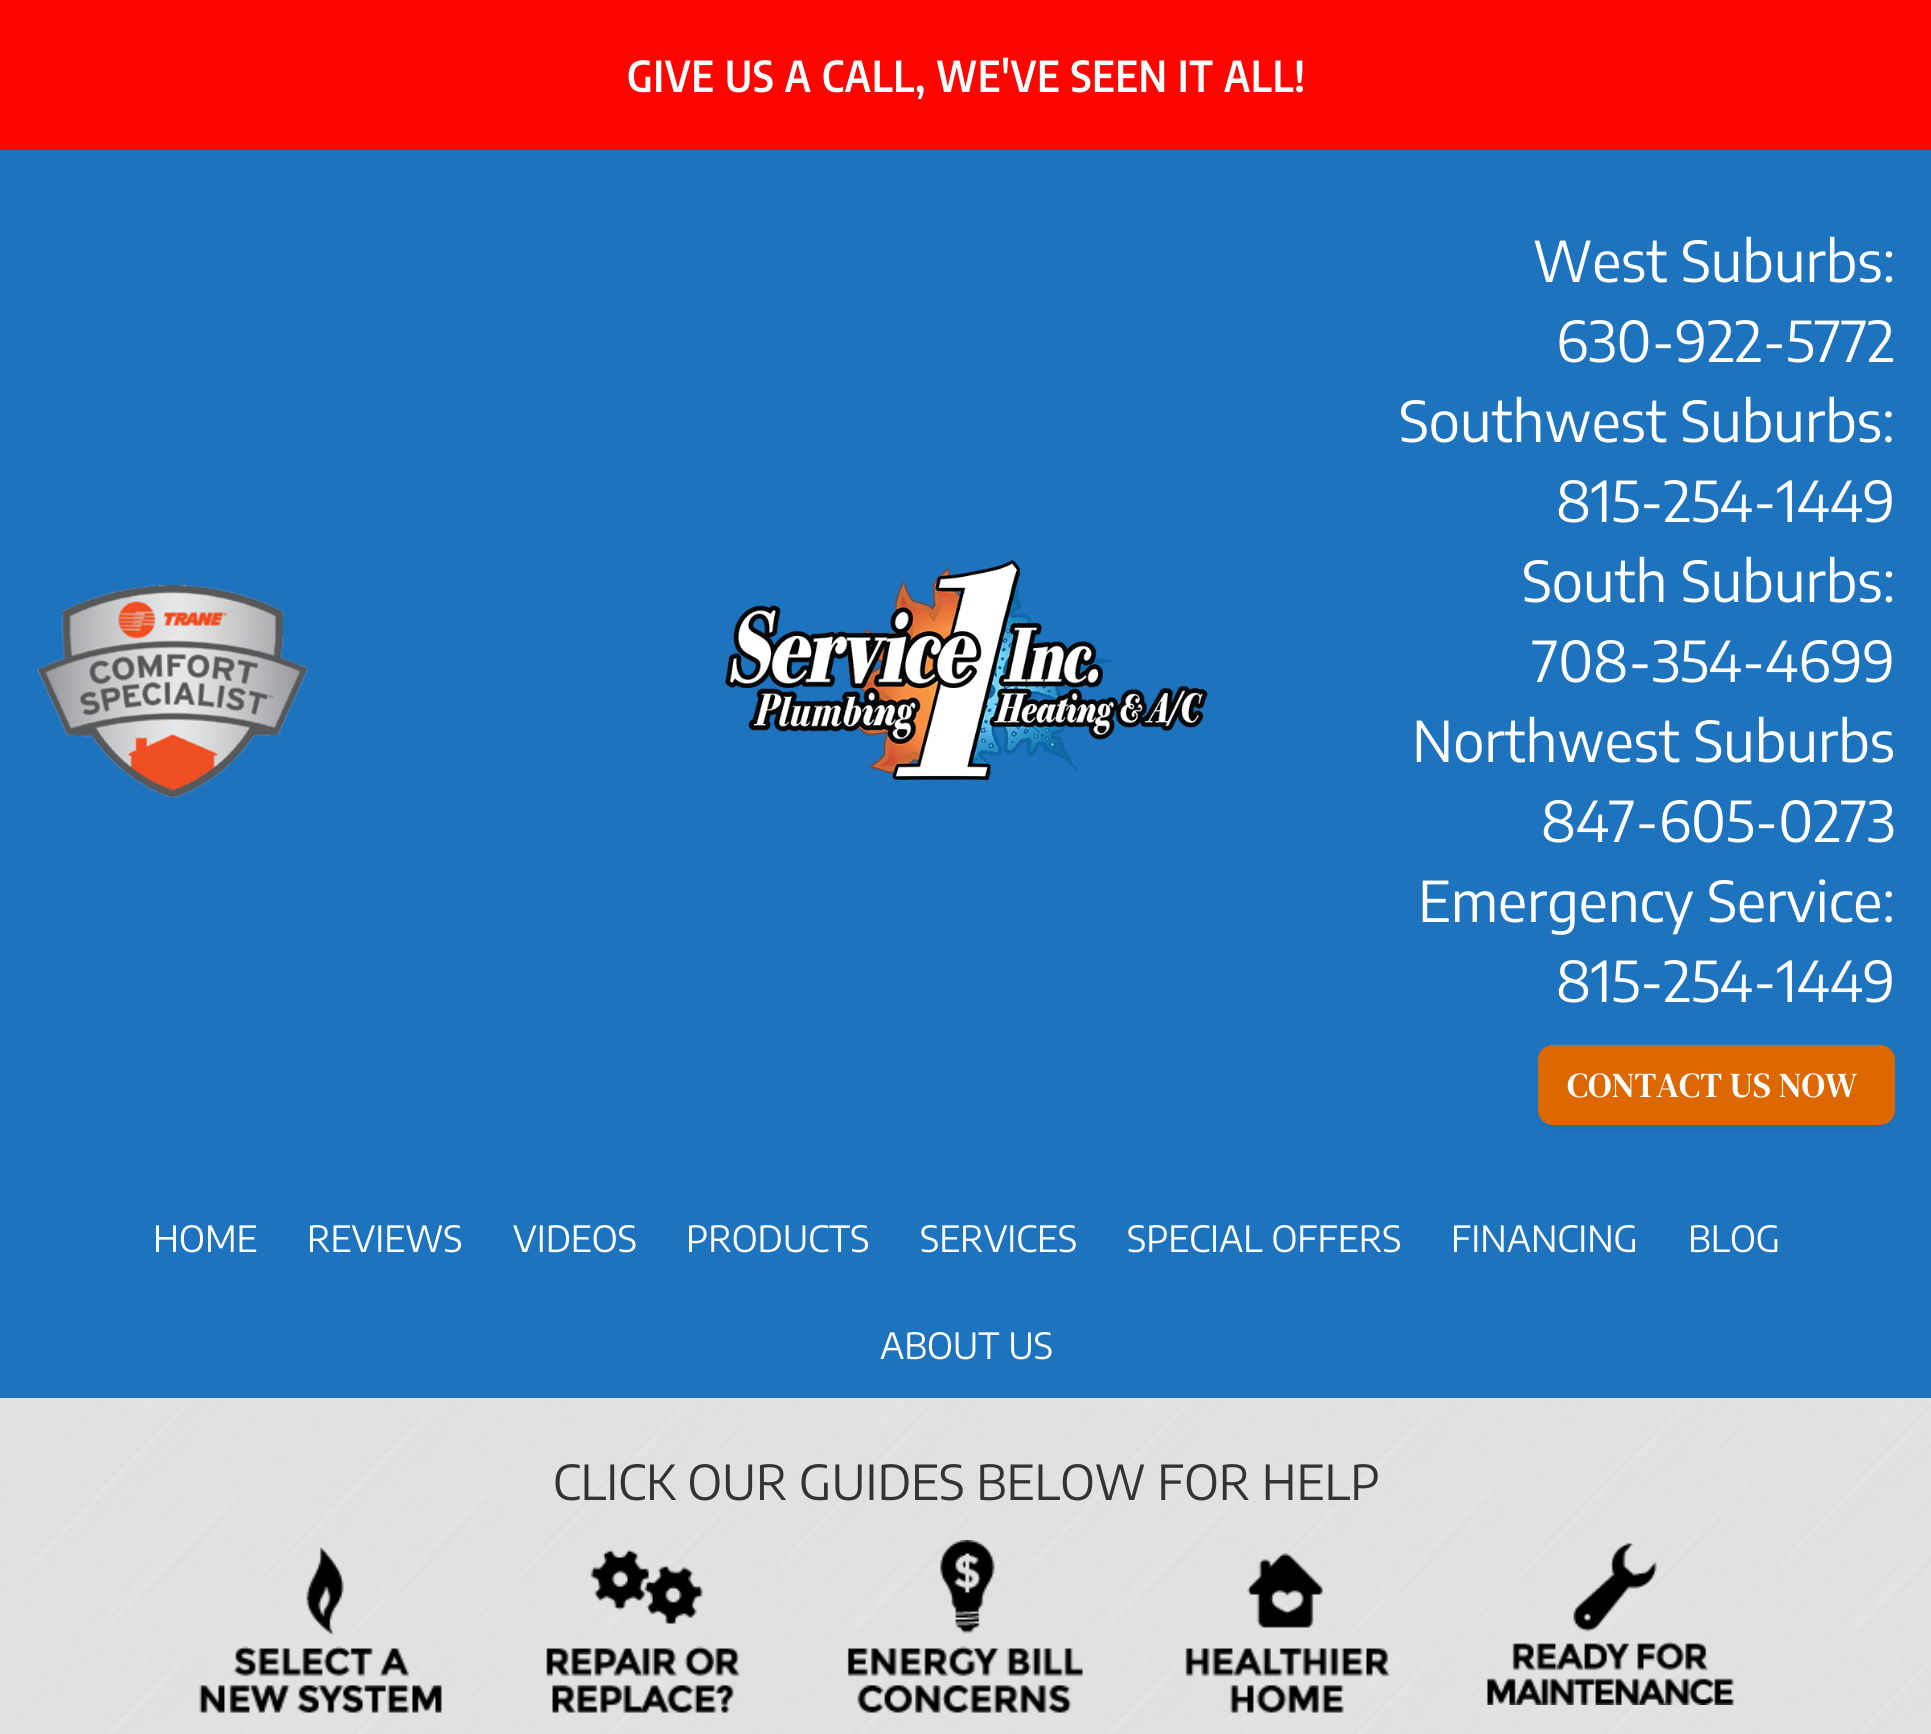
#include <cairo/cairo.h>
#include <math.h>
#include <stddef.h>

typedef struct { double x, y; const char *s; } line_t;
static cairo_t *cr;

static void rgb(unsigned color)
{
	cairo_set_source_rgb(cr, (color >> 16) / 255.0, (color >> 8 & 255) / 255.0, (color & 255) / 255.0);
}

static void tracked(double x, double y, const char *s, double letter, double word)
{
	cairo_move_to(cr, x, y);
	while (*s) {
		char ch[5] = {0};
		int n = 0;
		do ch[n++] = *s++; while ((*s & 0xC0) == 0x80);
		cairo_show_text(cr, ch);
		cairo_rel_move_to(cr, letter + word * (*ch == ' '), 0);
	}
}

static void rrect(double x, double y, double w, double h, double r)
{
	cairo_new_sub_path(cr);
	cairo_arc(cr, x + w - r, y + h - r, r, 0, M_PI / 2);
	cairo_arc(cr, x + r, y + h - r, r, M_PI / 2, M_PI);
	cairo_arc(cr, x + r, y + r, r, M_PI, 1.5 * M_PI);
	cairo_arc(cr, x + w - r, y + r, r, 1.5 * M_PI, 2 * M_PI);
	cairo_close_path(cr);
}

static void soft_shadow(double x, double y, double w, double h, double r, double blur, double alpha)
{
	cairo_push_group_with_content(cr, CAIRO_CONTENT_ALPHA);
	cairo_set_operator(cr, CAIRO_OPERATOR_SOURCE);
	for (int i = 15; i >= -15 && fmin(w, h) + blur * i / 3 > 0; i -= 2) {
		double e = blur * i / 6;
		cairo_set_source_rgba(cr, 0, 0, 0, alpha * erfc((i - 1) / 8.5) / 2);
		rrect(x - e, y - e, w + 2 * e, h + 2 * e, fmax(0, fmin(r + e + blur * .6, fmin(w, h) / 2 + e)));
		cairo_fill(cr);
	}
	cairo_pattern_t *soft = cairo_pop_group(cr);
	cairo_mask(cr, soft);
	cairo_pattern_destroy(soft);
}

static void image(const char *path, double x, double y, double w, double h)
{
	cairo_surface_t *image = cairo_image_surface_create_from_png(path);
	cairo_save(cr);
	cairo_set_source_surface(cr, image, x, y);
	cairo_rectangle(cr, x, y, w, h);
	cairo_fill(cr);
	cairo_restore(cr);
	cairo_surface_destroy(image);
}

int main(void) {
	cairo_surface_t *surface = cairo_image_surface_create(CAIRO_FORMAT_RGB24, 1931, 1734);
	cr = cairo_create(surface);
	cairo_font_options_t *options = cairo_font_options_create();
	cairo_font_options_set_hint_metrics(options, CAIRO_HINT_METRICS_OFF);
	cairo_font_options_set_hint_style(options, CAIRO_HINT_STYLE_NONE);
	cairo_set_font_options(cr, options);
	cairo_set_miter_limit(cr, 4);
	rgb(0x1e73be);
	cairo_paint(cr);
	rgb(0xff0500);
	cairo_rectangle(cr, 0, 0, 1931, 150);
	cairo_fill(cr);
	image("img/1.png", 37, 585, 271, 213);
	image("img/2.png", 725, 560, 483, 220);
	rgb(0x222222);
	soft_shadow(1550, 1068, 333, 55, 2.5, 6, 0.25);
	rgb(0xdd6700);
	rrect(1538, 1045, 357, 80, 15);
	cairo_fill(cr);
	rgb(0xf1f1f1);
	cairo_rectangle(cr, 0, 1398, 1931, 336);
	cairo_fill(cr);
	image("img/3.png", 0, 1398, 1931, 336);
	image("img/4.png", 199, 1547, 243, 166);
	image("img/5.png", 546, 1549, 195, 164);
	image("img/6.png", 847, 1540, 236, 173);
	image("img/7.png", 1185, 1553, 205, 160);
	image("img/8.png", 1487, 1543, 247, 162);
	cairo_select_font_face(cr, "Encode Sans Condensed SemiBold", CAIRO_FONT_SLANT_NORMAL, CAIRO_FONT_WEIGHT_NORMAL);
	cairo_set_font_size(cr, 42.5);
	rgb(0xffffff);
	tracked(627, 92, "GIVE US A CALL, WE'VE SEEN IT ALL!", 1.05, 0);
	cairo_select_font_face(cr, "Encode Sans", CAIRO_FONT_SLANT_NORMAL, CAIRO_FONT_WEIGHT_NORMAL);
	cairo_set_font_size(cr, 56);
	{
		static const line_t items[] = {
			{1533, 282, "West Suburbs:"},
			{1556, 362, "630-922-5772"},
			{1399, 442, "Southwest Suburbs:"},
			{1556, 522, "815-254-1449"},
			{1522, 602, "South Suburbs:"},
			{1532, 682, "708-354-4699"},
			{1412, 762, "Northwest Suburbs"},
			{1541, 842, "847-605-0273"},
			{1418, 922, "Emergency Service:"},
			{1556, 1002, "815-254-1449"},
		};
		for (size_t i = 0; i < sizeof items / sizeof *items; i++) {
			cairo_move_to(cr, items[i].x, items[i].y);
			cairo_show_text(cr, items[i].s);
		}
	}
	cairo_select_font_face(cr, "DM Serif Text", CAIRO_FONT_SLANT_NORMAL, CAIRO_FONT_WEIGHT_NORMAL);
	cairo_set_font_size(cr, 35);
	cairo_move_to(cr, 1567, 1097);
	cairo_show_text(cr, "CONTACT US NOW");
	cairo_select_font_face(cr, "Encode Sans", CAIRO_FONT_SLANT_NORMAL, CAIRO_FONT_WEIGHT_NORMAL);
	cairo_set_font_size(cr, 36);
	{
		static const line_t items[] = {
			{153, 1252, "HOME"},
			{307, 1252, "REVIEWS"},
			{513, 1252, "VIDEOS"},
			{686, 1252, "PRODUCTS"},
			{920, 1252, "SERVICES"},
			{1127, 1252, "SPECIAL OFFERS"},
			{1451, 1252, "FINANCING"},
			{1688, 1252, "BLOG"},
			{880, 1359, "ABOUT US"},
		};
		for (size_t i = 0; i < sizeof items / sizeof *items; i++) {
			cairo_move_to(cr, items[i].x, items[i].y);
			cairo_show_text(cr, items[i].s);
		}
	}
	cairo_set_font_size(cr, 48);
	rgb(0x333333);
	cairo_move_to(cr, 553, 1500);
	cairo_show_text(cr, "CLICK OUR GUIDES BELOW FOR HELP");
	cairo_surface_write_to_png(surface, "page.png");
	cairo_font_options_destroy(options);
	cairo_destroy(cr);
	cairo_surface_destroy(surface);
	return 0;
}
